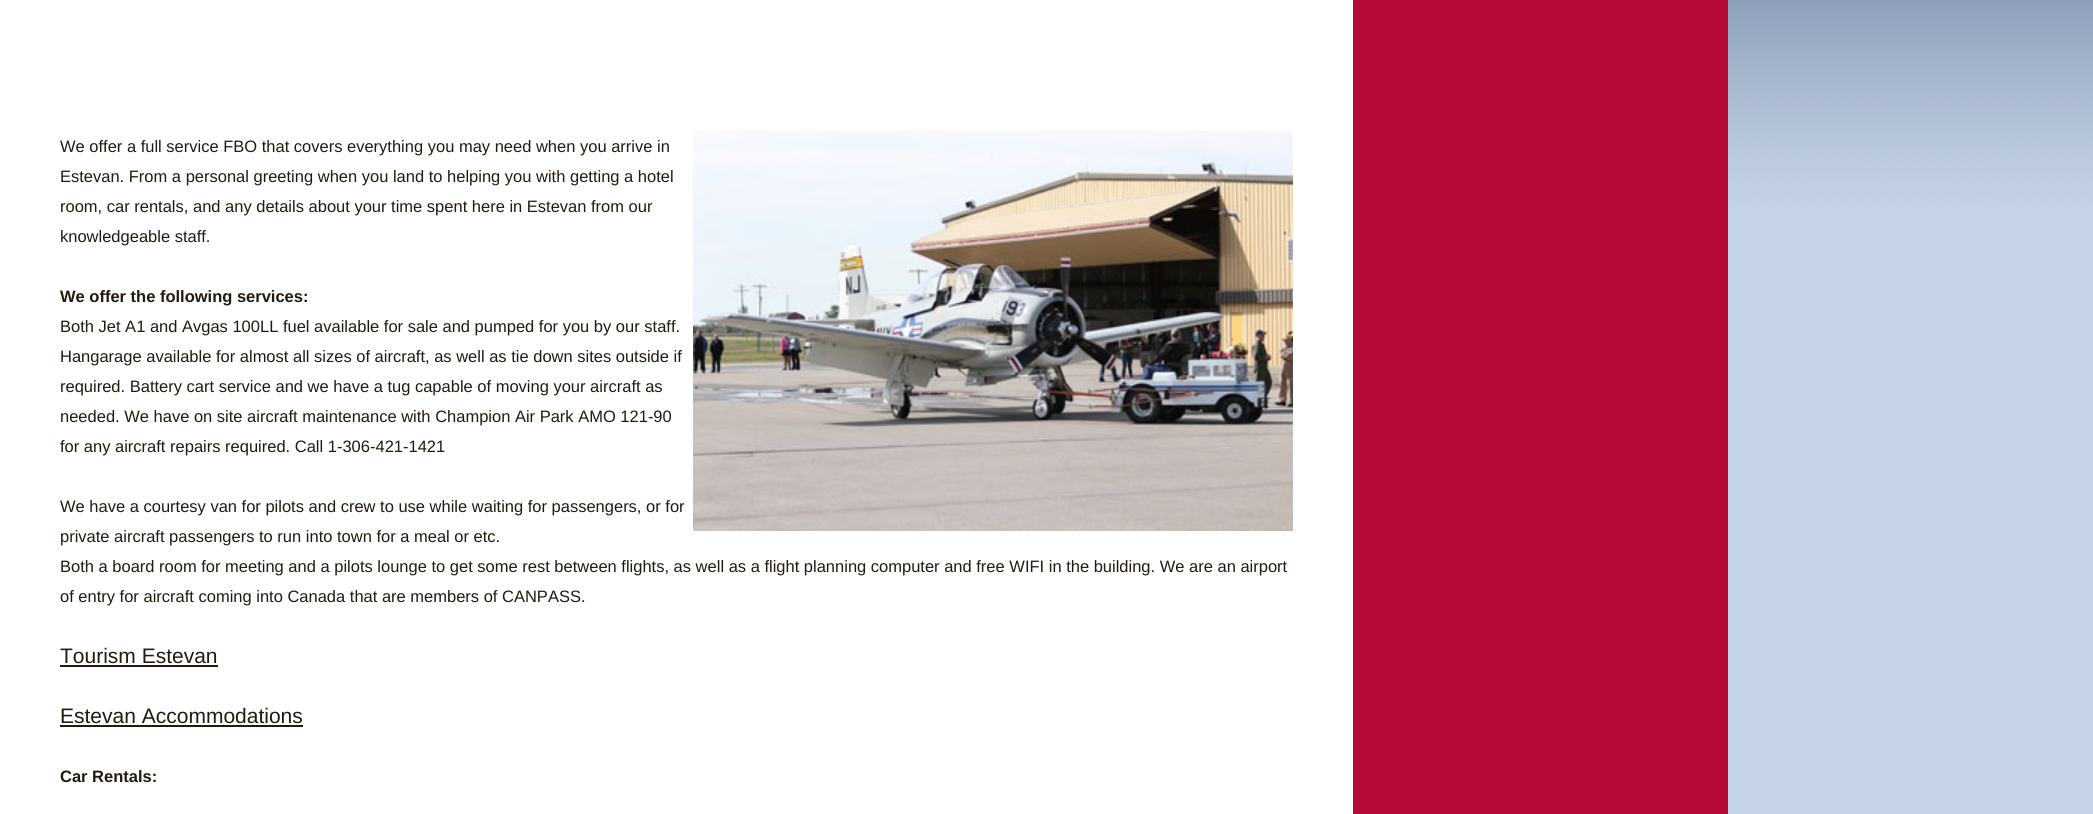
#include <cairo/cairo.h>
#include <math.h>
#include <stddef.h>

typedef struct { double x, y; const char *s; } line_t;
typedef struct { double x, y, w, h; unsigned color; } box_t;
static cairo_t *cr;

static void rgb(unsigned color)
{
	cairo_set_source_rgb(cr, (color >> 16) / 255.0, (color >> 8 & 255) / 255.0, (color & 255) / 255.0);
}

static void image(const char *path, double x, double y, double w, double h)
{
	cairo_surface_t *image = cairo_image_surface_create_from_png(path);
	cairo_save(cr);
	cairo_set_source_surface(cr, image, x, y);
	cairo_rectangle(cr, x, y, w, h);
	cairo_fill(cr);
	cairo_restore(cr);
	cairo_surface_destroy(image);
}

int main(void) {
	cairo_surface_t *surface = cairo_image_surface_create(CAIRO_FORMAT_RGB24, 2093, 814);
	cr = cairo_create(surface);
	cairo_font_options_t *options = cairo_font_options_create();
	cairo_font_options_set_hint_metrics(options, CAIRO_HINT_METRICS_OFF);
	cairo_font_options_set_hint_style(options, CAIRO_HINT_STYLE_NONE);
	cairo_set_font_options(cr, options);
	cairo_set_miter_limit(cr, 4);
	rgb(0xffffff);
	cairo_paint(cr);
	image("img/1.png", 1728, 0, 365, 814);
	image("img/2.png", 693, 130, 600, 401);
	{
		static const box_t items[] = {
			{60, 665, 158, 2, 0x231a0e},
			{60, 725, 243, 2, 0x231a0e},
			{1353, 0, 375, 814, 0xb50a38},
		};
		for (size_t i = 0; i < sizeof items / sizeof *items; i++) {
			rgb(items[i].color);
			cairo_rectangle(cr, items[i].x, items[i].y, items[i].w, items[i].h);
			cairo_fill(cr);
		}
	}
	cairo_select_font_face(cr, "Liberation Sans", CAIRO_FONT_SLANT_NORMAL, CAIRO_FONT_WEIGHT_NORMAL);
	cairo_set_font_size(cr, 16.5);
	rgb(0x231a0e);
	{
		static const line_t items[] = {
			{60, 152, "We offer a full service FBO that covers everything you may need when you arrive in"},
			{60, 182, "Estevan. From a personal greeting when you land to helping you with getting a hotel"},
			{60, 212, "room, car rentals, and any details about your time spent here in Estevan from our"},
			{60, 242, "knowledgeable staff."},
		};
		for (size_t i = 0; i < sizeof items / sizeof *items; i++) {
			cairo_move_to(cr, items[i].x, items[i].y);
			cairo_show_text(cr, items[i].s);
		}
	}
	cairo_select_font_face(cr, "Liberation Sans", CAIRO_FONT_SLANT_NORMAL, CAIRO_FONT_WEIGHT_BOLD);
	cairo_move_to(cr, 60, 302);
	cairo_show_text(cr, "We offer the following services:");
	cairo_select_font_face(cr, "Liberation Sans", CAIRO_FONT_SLANT_NORMAL, CAIRO_FONT_WEIGHT_NORMAL);
	{
		static const line_t items[] = {
			{60, 332, "Both Jet A1 and Avgas 100LL fuel available for sale and pumped for you by our staff."},
			{60, 362, "Hangarage available for almost all sizes of aircraft, as well as tie down sites outside if"},
			{60, 392, "required. Battery cart service and we have a tug capable of moving your aircraft as"},
			{60, 422, "needed. We have on site aircraft maintenance with Champion Air Park AMO 121-90"},
			{60, 452, "for any aircraft repairs required. Call 1-306-421-1421"},
			{60, 512, "We have a courtesy van for pilots and crew to use while waiting for passengers, or for"},
			{60, 542, "private aircraft passengers to run into town for a meal or etc."},
			{60, 572, "Both a board room for meeting and a pilots lounge to get some rest between flights, as well as a flight planning computer and free WIFI in the building. We are an airport"},
			{60, 602, "of entry for aircraft coming into Canada that are members of CANPASS."},
		};
		for (size_t i = 0; i < sizeof items / sizeof *items; i++) {
			cairo_move_to(cr, items[i].x, items[i].y);
			cairo_show_text(cr, items[i].s);
		}
	}
	cairo_set_font_size(cr, 21);
	cairo_move_to(cr, 60, 663);
	cairo_show_text(cr, "Tourism Estevan");
	cairo_move_to(cr, 60, 723);
	cairo_show_text(cr, "Estevan Accommodations");
	cairo_select_font_face(cr, "Liberation Sans", CAIRO_FONT_SLANT_NORMAL, CAIRO_FONT_WEIGHT_BOLD);
	cairo_set_font_size(cr, 16.5);
	cairo_move_to(cr, 60, 782);
	cairo_show_text(cr, "Car Rentals:");
	cairo_surface_write_to_png(surface, "page.png");
	cairo_font_options_destroy(options);
	cairo_destroy(cr);
	cairo_surface_destroy(surface);
	return 0;
}
